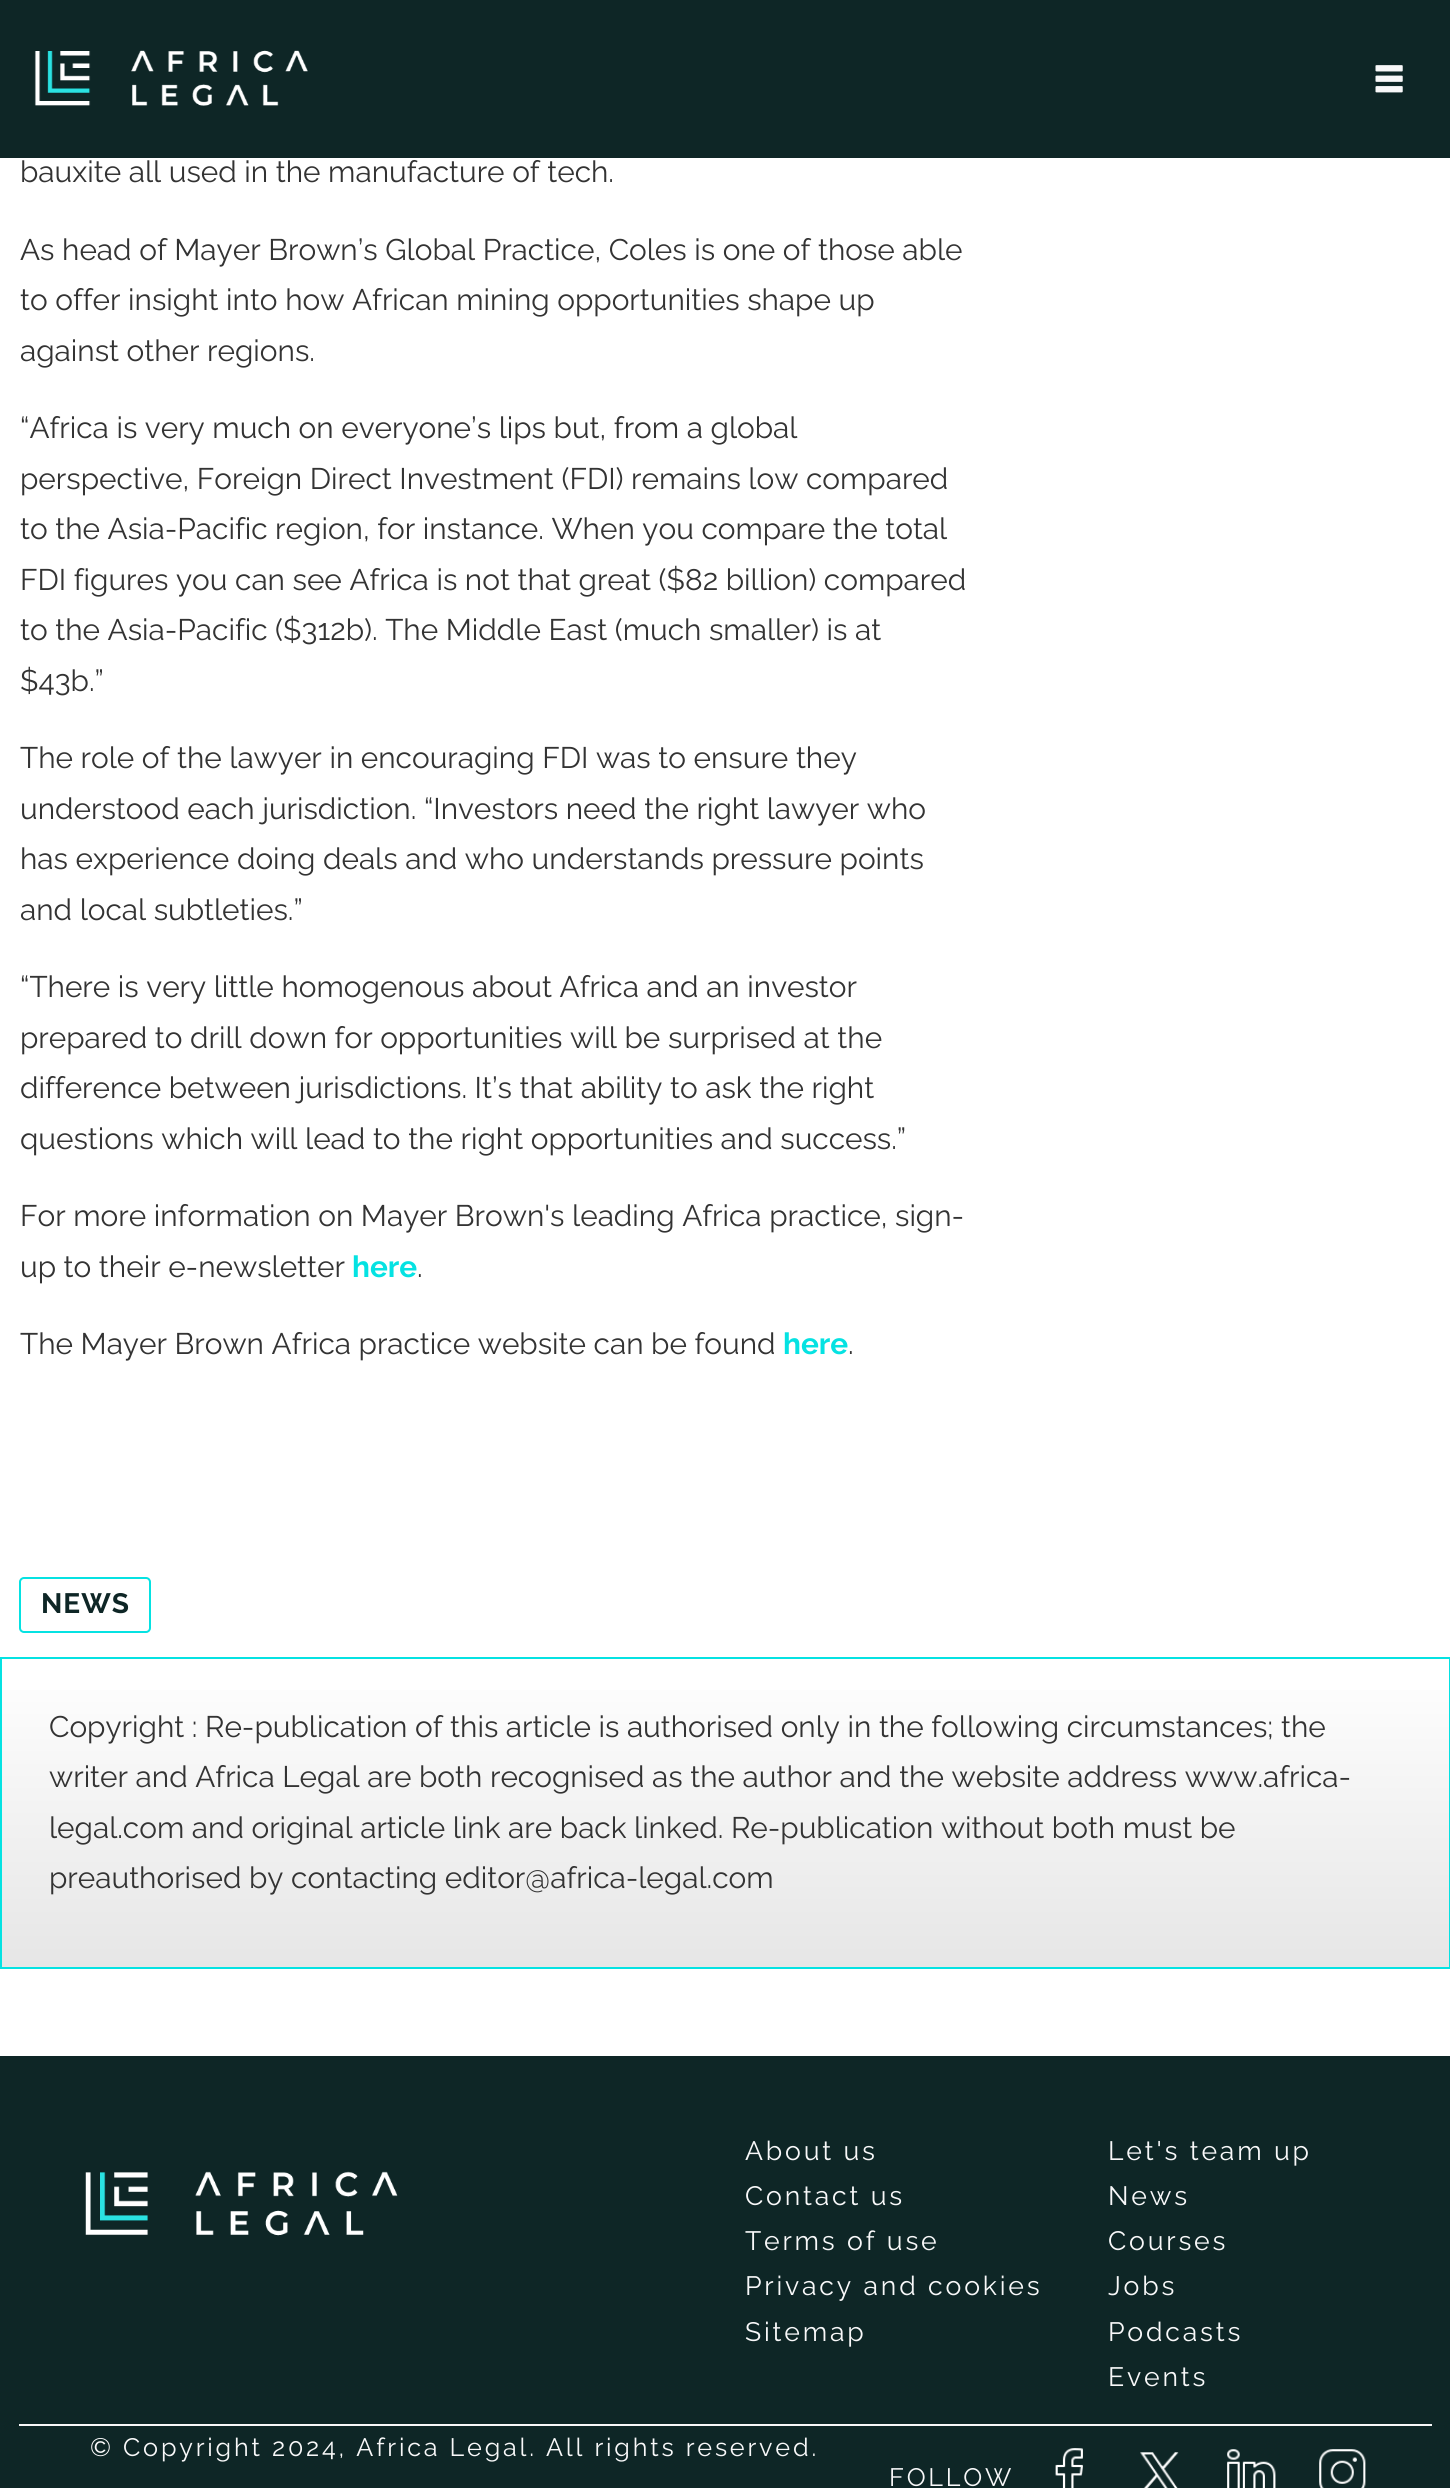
#include <cairo/cairo.h>
#include <math.h>
#include <stddef.h>

typedef struct { double x, y; const char *s; } line_t;
static cairo_t *cr;

static void rgb(unsigned color)
{
	cairo_set_source_rgb(cr, (color >> 16) / 255.0, (color >> 8 & 255) / 255.0, (color & 255) / 255.0);
}

static void tracked(double x, double y, const char *s, double letter, double word)
{
	cairo_move_to(cr, x, y);
	while (*s) {
		char ch[5] = {0};
		int n = 0;
		do ch[n++] = *s++; while ((*s & 0xC0) == 0x80);
		cairo_show_text(cr, ch);
		cairo_rel_move_to(cr, letter + word * (*ch == ' '), 0);
	}
}

static void rrect(double x, double y, double w, double h, double r)
{
	cairo_new_sub_path(cr);
	cairo_arc(cr, x + w - r, y + h - r, r, 0, M_PI / 2);
	cairo_arc(cr, x + r, y + h - r, r, M_PI / 2, M_PI);
	cairo_arc(cr, x + r, y + r, r, M_PI, 1.5 * M_PI);
	cairo_arc(cr, x + w - r, y + r, r, 1.5 * M_PI, 2 * M_PI);
	cairo_close_path(cr);
}

static void image(const char *path, double x, double y, double w, double h)
{
	cairo_surface_t *image = cairo_image_surface_create_from_png(path);
	cairo_save(cr);
	cairo_set_source_surface(cr, image, x, y);
	cairo_rectangle(cr, x, y, w, h);
	cairo_fill(cr);
	cairo_restore(cr);
	cairo_surface_destroy(image);
}

int main(void) {
	cairo_surface_t *surface = cairo_image_surface_create(CAIRO_FORMAT_RGB24, 1450, 2488);
	cr = cairo_create(surface);
	cairo_font_options_t *options = cairo_font_options_create();
	cairo_font_options_set_hint_metrics(options, CAIRO_HINT_METRICS_OFF);
	cairo_font_options_set_hint_style(options, CAIRO_HINT_STYLE_NONE);
	cairo_set_font_options(cr, options);
	cairo_set_miter_limit(cr, 4);
	cairo_pattern_t *gradient;
	rgb(0xffffff);
	cairo_paint(cr);
	rgb(0x0e2626);
	cairo_rectangle(cr, 0, 0, 1450, 158);
	cairo_fill(cr);
	image("img/1.png", 34, 50, 274, 56);
	image("img/2.png", 1375, 65, 28, 28);
	rrect(20, 1578, 130, 54, 4);
	rgb(0x05e2e2);
	cairo_stroke(cr);
	gradient = cairo_pattern_create_linear(725, 1659, 725, 1967);
	cairo_pattern_add_color_stop_rgba(gradient, 0, 1, 1, 1, 1);
	cairo_pattern_add_color_stop_rgba(gradient, 1, 0.902, 0.902, 0.902, 1);
	cairo_set_source(cr, gradient);
	cairo_pattern_destroy(gradient);
	cairo_rectangle(cr, 2, 1690, 1447, 277);
	cairo_fill(cr);
	cairo_rectangle(cr, 1, 1658, 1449, 310);
	rgb(0x05e2e2);
	cairo_stroke(cr);
	rgb(0x0e2626);
	cairo_rectangle(cr, 0, 2056, 1450, 432);
	cairo_fill(cr);
	image("img/3.png", 85, 2171, 313, 65);
	rgb(0xf8f8f9);
	cairo_rectangle(cr, 19, 2424, 1413, 2);
	cairo_fill(cr);
	image("img/4.png", 1055, 2448, 28, 40);
	image("img/5.png", 1140, 2452, 39, 36);
	image("img/6.png", 1227, 2449, 49, 39);
	image("img/7.png", 1319, 2449, 47, 39);
	cairo_select_font_face(cr, "Raleway", CAIRO_FONT_SLANT_NORMAL, CAIRO_FONT_WEIGHT_NORMAL);
	cairo_set_font_size(cr, 29.75);
	rgb(0x333333);
	{
		static const line_t items[] = {
			{20, 182, "bauxite all used in the manufacture of tech."},
			{20, 260, "As head of Mayer Brown’s Global Practice, Coles is one of those able"},
			{20, 310, "to offer insight into how African mining opportunities shape up"},
			{20, 361, "against other regions."},
			{20, 438, "“Africa is very much on everyone’s lips but, from a global"},
			{20, 489, "perspective, Foreign Direct Investment (FDI) remains low compared"},
			{20, 539, "to the Asia-Pacific region, for instance. When you compare the total"},
			{20, 590, "FDI figures you can see Africa is not that great ($82 billion) compared"},
			{20, 640, "to the Asia-Pacific ($312b). The Middle East (much smaller) is at"},
			{20, 691, "$43b.”"},
			{20, 768, "The role of the lawyer in encouraging FDI was to ensure they"},
			{20, 819, "understood each jurisdiction. “Investors need the right lawyer who"},
			{20, 869, "has experience doing deals and who understands pressure points"},
			{20, 920, "and local subtleties.”"},
			{20, 997, "“There is very little homogenous about Africa and an investor"},
			{20, 1048, "prepared to drill down for opportunities will be surprised at the"},
			{20, 1098, "difference between jurisdictions. It’s that ability to ask the right"},
			{20, 1149, "questions which will lead to the right opportunities and success.”"},
			{20, 1226, "For more information on Mayer Brown's leading Africa practice, sign-"},
			{20, 1277, "up to their e-newsletter"},
		};
		for (size_t i = 0; i < sizeof items / sizeof *items; i++) {
			cairo_move_to(cr, items[i].x, items[i].y);
			cairo_show_text(cr, items[i].s);
		}
	}
	cairo_select_font_face(cr, "Raleway", CAIRO_FONT_SLANT_NORMAL, CAIRO_FONT_WEIGHT_BOLD);
	rgb(0x05e2e2);
	cairo_move_to(cr, 352, 1277);
	cairo_show_text(cr, "here");
	cairo_select_font_face(cr, "Raleway", CAIRO_FONT_SLANT_NORMAL, CAIRO_FONT_WEIGHT_NORMAL);
	rgb(0x333333);
	cairo_move_to(cr, 417, 1277);
	cairo_show_text(cr, ".");
	cairo_move_to(cr, 20, 1354);
	cairo_show_text(cr, "The Mayer Brown Africa practice website can be found");
	cairo_select_font_face(cr, "Raleway", CAIRO_FONT_SLANT_NORMAL, CAIRO_FONT_WEIGHT_BOLD);
	rgb(0x05e2e2);
	cairo_move_to(cr, 783, 1354);
	cairo_show_text(cr, "here");
	cairo_select_font_face(cr, "Raleway", CAIRO_FONT_SLANT_NORMAL, CAIRO_FONT_WEIGHT_NORMAL);
	rgb(0x333333);
	cairo_move_to(cr, 848, 1354);
	cairo_show_text(cr, ".");
	cairo_select_font_face(cr, "Raleway", CAIRO_FONT_SLANT_NORMAL, CAIRO_FONT_WEIGHT_BOLD);
	cairo_set_font_size(cr, 28);
	rgb(0x0e2626);
	tracked(41, 1613, "NEWS", 1, 0);
	cairo_select_font_face(cr, "Raleway", CAIRO_FONT_SLANT_NORMAL, CAIRO_FONT_WEIGHT_NORMAL);
	cairo_set_font_size(cr, 29.75);
	rgb(0x333333);
	{
		static const line_t items[] = {
			{49, 1737, "Copyright : Re-publication of this article is authorised only in the following circumstances; the"},
			{49, 1787, "writer and Africa Legal are both recognised as the author and the website address www.africa-"},
			{49, 1838, "legal.com and original article link are back linked. Re-publication without both must be"},
			{49, 1888, "preauthorised by contacting editor@africa-legal.com"},
		};
		for (size_t i = 0; i < sizeof items / sizeof *items; i++) {
			cairo_move_to(cr, items[i].x, items[i].y);
			cairo_show_text(cr, items[i].s);
		}
	}
	cairo_set_font_size(cr, 26.6);
	rgb(0xf8f8f9);
	{
		static const line_t items[] = {
			{745, 2160, "About us"},
			{745, 2205, "Contact us"},
			{745, 2250, "Terms of use"},
			{745, 2295, "Privacy and cookies"},
			{745, 2341, "Sitemap"},
			{1108, 2160, "Let's team up"},
			{1108, 2205, "News"},
			{1108, 2250, "Courses"},
			{1108, 2295, "Jobs"},
			{1108, 2341, "Podcasts"},
			{1108, 2386, "Events"},
		};
		for (size_t i = 0; i < sizeof items / sizeof *items; i++) {
			tracked(items[i].x, items[i].y, items[i].s, 2.8, 0);
		}
	}
	cairo_set_font_size(cr, 25.2);
	tracked(90, 2456, "© Copyright 2024, Africa Legal. All rights reserved.", 2.8, 0);
	tracked(889, 2486, "FOLLOW", 2.8, 0);
	cairo_surface_write_to_png(surface, "page.png");
	cairo_font_options_destroy(options);
	cairo_destroy(cr);
	cairo_surface_destroy(surface);
	return 0;
}
